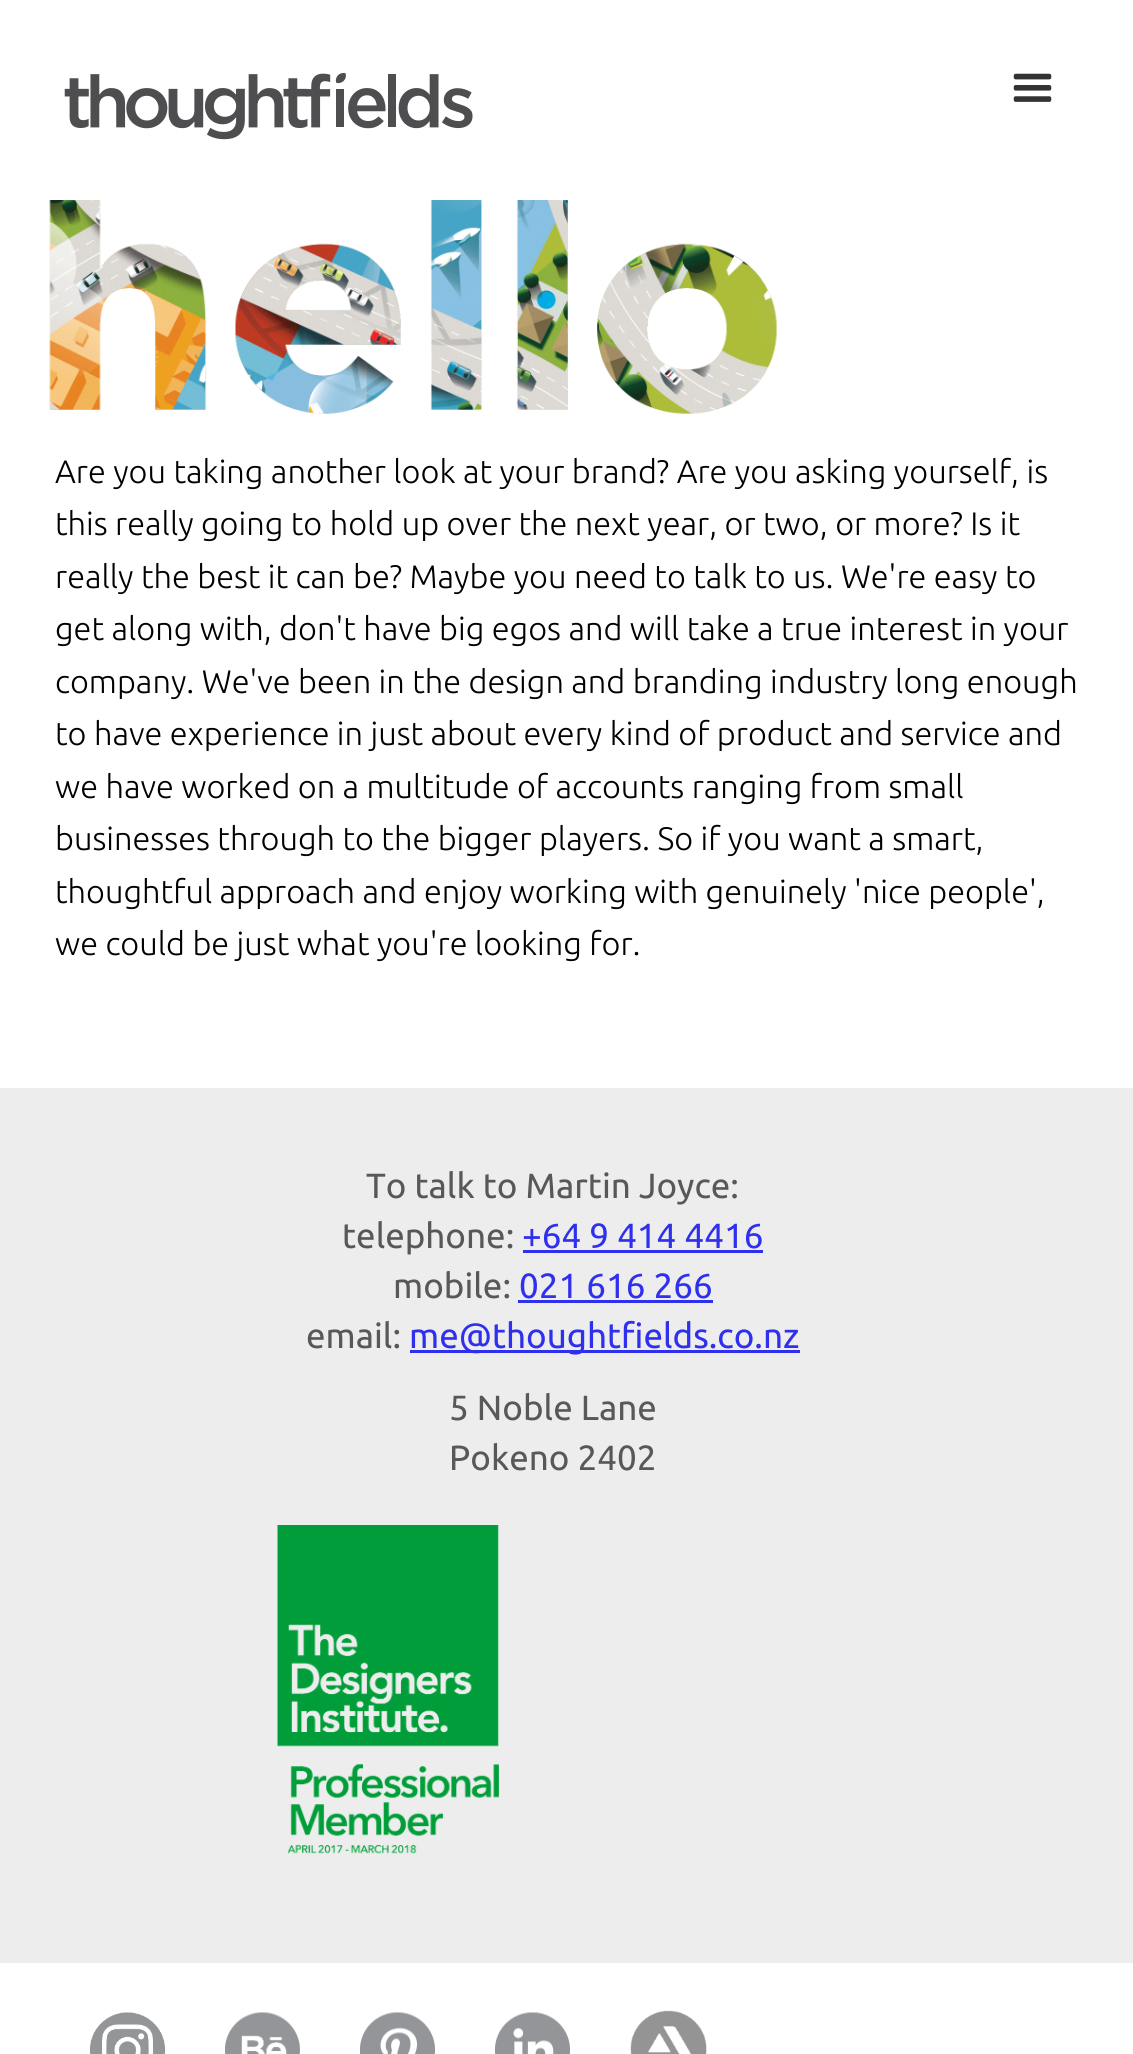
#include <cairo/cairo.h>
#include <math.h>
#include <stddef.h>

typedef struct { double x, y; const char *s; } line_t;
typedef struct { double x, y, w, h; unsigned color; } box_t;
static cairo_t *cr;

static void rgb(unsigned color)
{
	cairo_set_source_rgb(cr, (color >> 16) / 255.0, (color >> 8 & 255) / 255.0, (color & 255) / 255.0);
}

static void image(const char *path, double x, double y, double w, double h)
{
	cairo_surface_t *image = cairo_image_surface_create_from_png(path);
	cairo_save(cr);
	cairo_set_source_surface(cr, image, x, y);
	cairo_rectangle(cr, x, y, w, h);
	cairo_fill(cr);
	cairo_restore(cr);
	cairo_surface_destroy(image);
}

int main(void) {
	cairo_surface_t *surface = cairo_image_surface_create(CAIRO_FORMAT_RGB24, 1133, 2054);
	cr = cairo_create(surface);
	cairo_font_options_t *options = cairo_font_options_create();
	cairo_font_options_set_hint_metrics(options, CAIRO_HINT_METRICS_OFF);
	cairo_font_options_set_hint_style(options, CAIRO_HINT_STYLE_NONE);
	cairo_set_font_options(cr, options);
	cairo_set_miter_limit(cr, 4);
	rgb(0xffffff);
	cairo_paint(cr);
	image("img/1.png", 64, 73, 409, 67);
	image("img/2.png", 1013, 73, 39, 29);
	image("img/3.png", 49, 200, 728, 214);
	{
		static const box_t items[] = {
			{0, 1088, 1133, 875, 0xededed},
			{523, 1250, 240, 3, 0x2f2fee},
			{518, 1300, 195, 3, 0x2f2fee},
			{410, 1350, 390, 3, 0x2f2fee},
		};
		for (size_t i = 0; i < sizeof items / sizeof *items; i++) {
			rgb(items[i].color);
			cairo_rectangle(cr, items[i].x, items[i].y, items[i].w, items[i].h);
			cairo_fill(cr);
		}
	}
	image("img/4.png", 277, 1525, 222, 329);
	image("img/5.png", 90, 2012, 75, 42);
	image("img/6.png", 225, 2012, 75, 42);
	image("img/7.png", 360, 2012, 75, 42);
	image("img/8.png", 495, 2012, 75, 42);
	image("img/9.png", 630, 2010, 77, 44);
	cairo_select_font_face(cr, "Ubuntu Light", CAIRO_FONT_SLANT_NORMAL, CAIRO_FONT_WEIGHT_NORMAL);
	cairo_set_font_size(cr, 32.5);
	rgb(0x000000);
	{
		static const line_t items[] = {
			{55, 483, "Are you taking another look at your brand? Are you asking yourself, is"},
			{55, 535, "this really going to hold up over the next year, or two, or more? Is it"},
			{55, 588, "really the best it can be? Maybe you need to talk to us. We're easy to"},
			{55, 640, "get along with, don't have big egos and will take a true interest in your"},
			{55, 693, "company. We've been in the design and branding industry long enough"},
			{55, 745, "to have experience in just about every kind of product and service and"},
			{55, 798, "we have worked on a multitude of accounts ranging from small"},
			{55, 850, "businesses through to the bigger players. So if you want a smart,"},
			{55, 903, "thoughtful approach and enjoy working with genuinely 'nice people',"},
			{55, 955, "we could be just what you're looking for."},
		};
		for (size_t i = 0; i < sizeof items / sizeof *items; i++) {
			cairo_move_to(cr, items[i].x, items[i].y);
			cairo_show_text(cr, items[i].s);
		}
	}
	cairo_select_font_face(cr, "Ubuntu", CAIRO_FONT_SLANT_NORMAL, CAIRO_FONT_WEIGHT_NORMAL);
	cairo_set_font_size(cr, 35);
	rgb(0x585858);
	cairo_move_to(cr, 366, 1198);
	cairo_show_text(cr, "To talk to Martin Joyce:");
	cairo_move_to(cr, 342, 1248);
	cairo_show_text(cr, "telephone:");
	rgb(0x2f2fee);
	cairo_move_to(cr, 522, 1248);
	cairo_show_text(cr, "+64 9 414 4416");
	rgb(0x585858);
	cairo_move_to(cr, 393, 1298);
	cairo_show_text(cr, "mobile:");
	rgb(0x2f2fee);
	cairo_move_to(cr, 519, 1298);
	cairo_show_text(cr, "021 616 266");
	rgb(0x585858);
	cairo_move_to(cr, 306, 1348);
	cairo_show_text(cr, "email:");
	rgb(0x2f2fee);
	cairo_move_to(cr, 409, 1348);
	cairo_show_text(cr, "me@thoughtfields.co.nz");
	rgb(0x585858);
	cairo_move_to(cr, 449, 1420);
	cairo_show_text(cr, "5 Noble Lane");
	cairo_move_to(cr, 449, 1470);
	cairo_show_text(cr, "Pokeno 2402");
	cairo_surface_write_to_png(surface, "page.png");
	cairo_font_options_destroy(options);
	cairo_destroy(cr);
	cairo_surface_destroy(surface);
	return 0;
}
